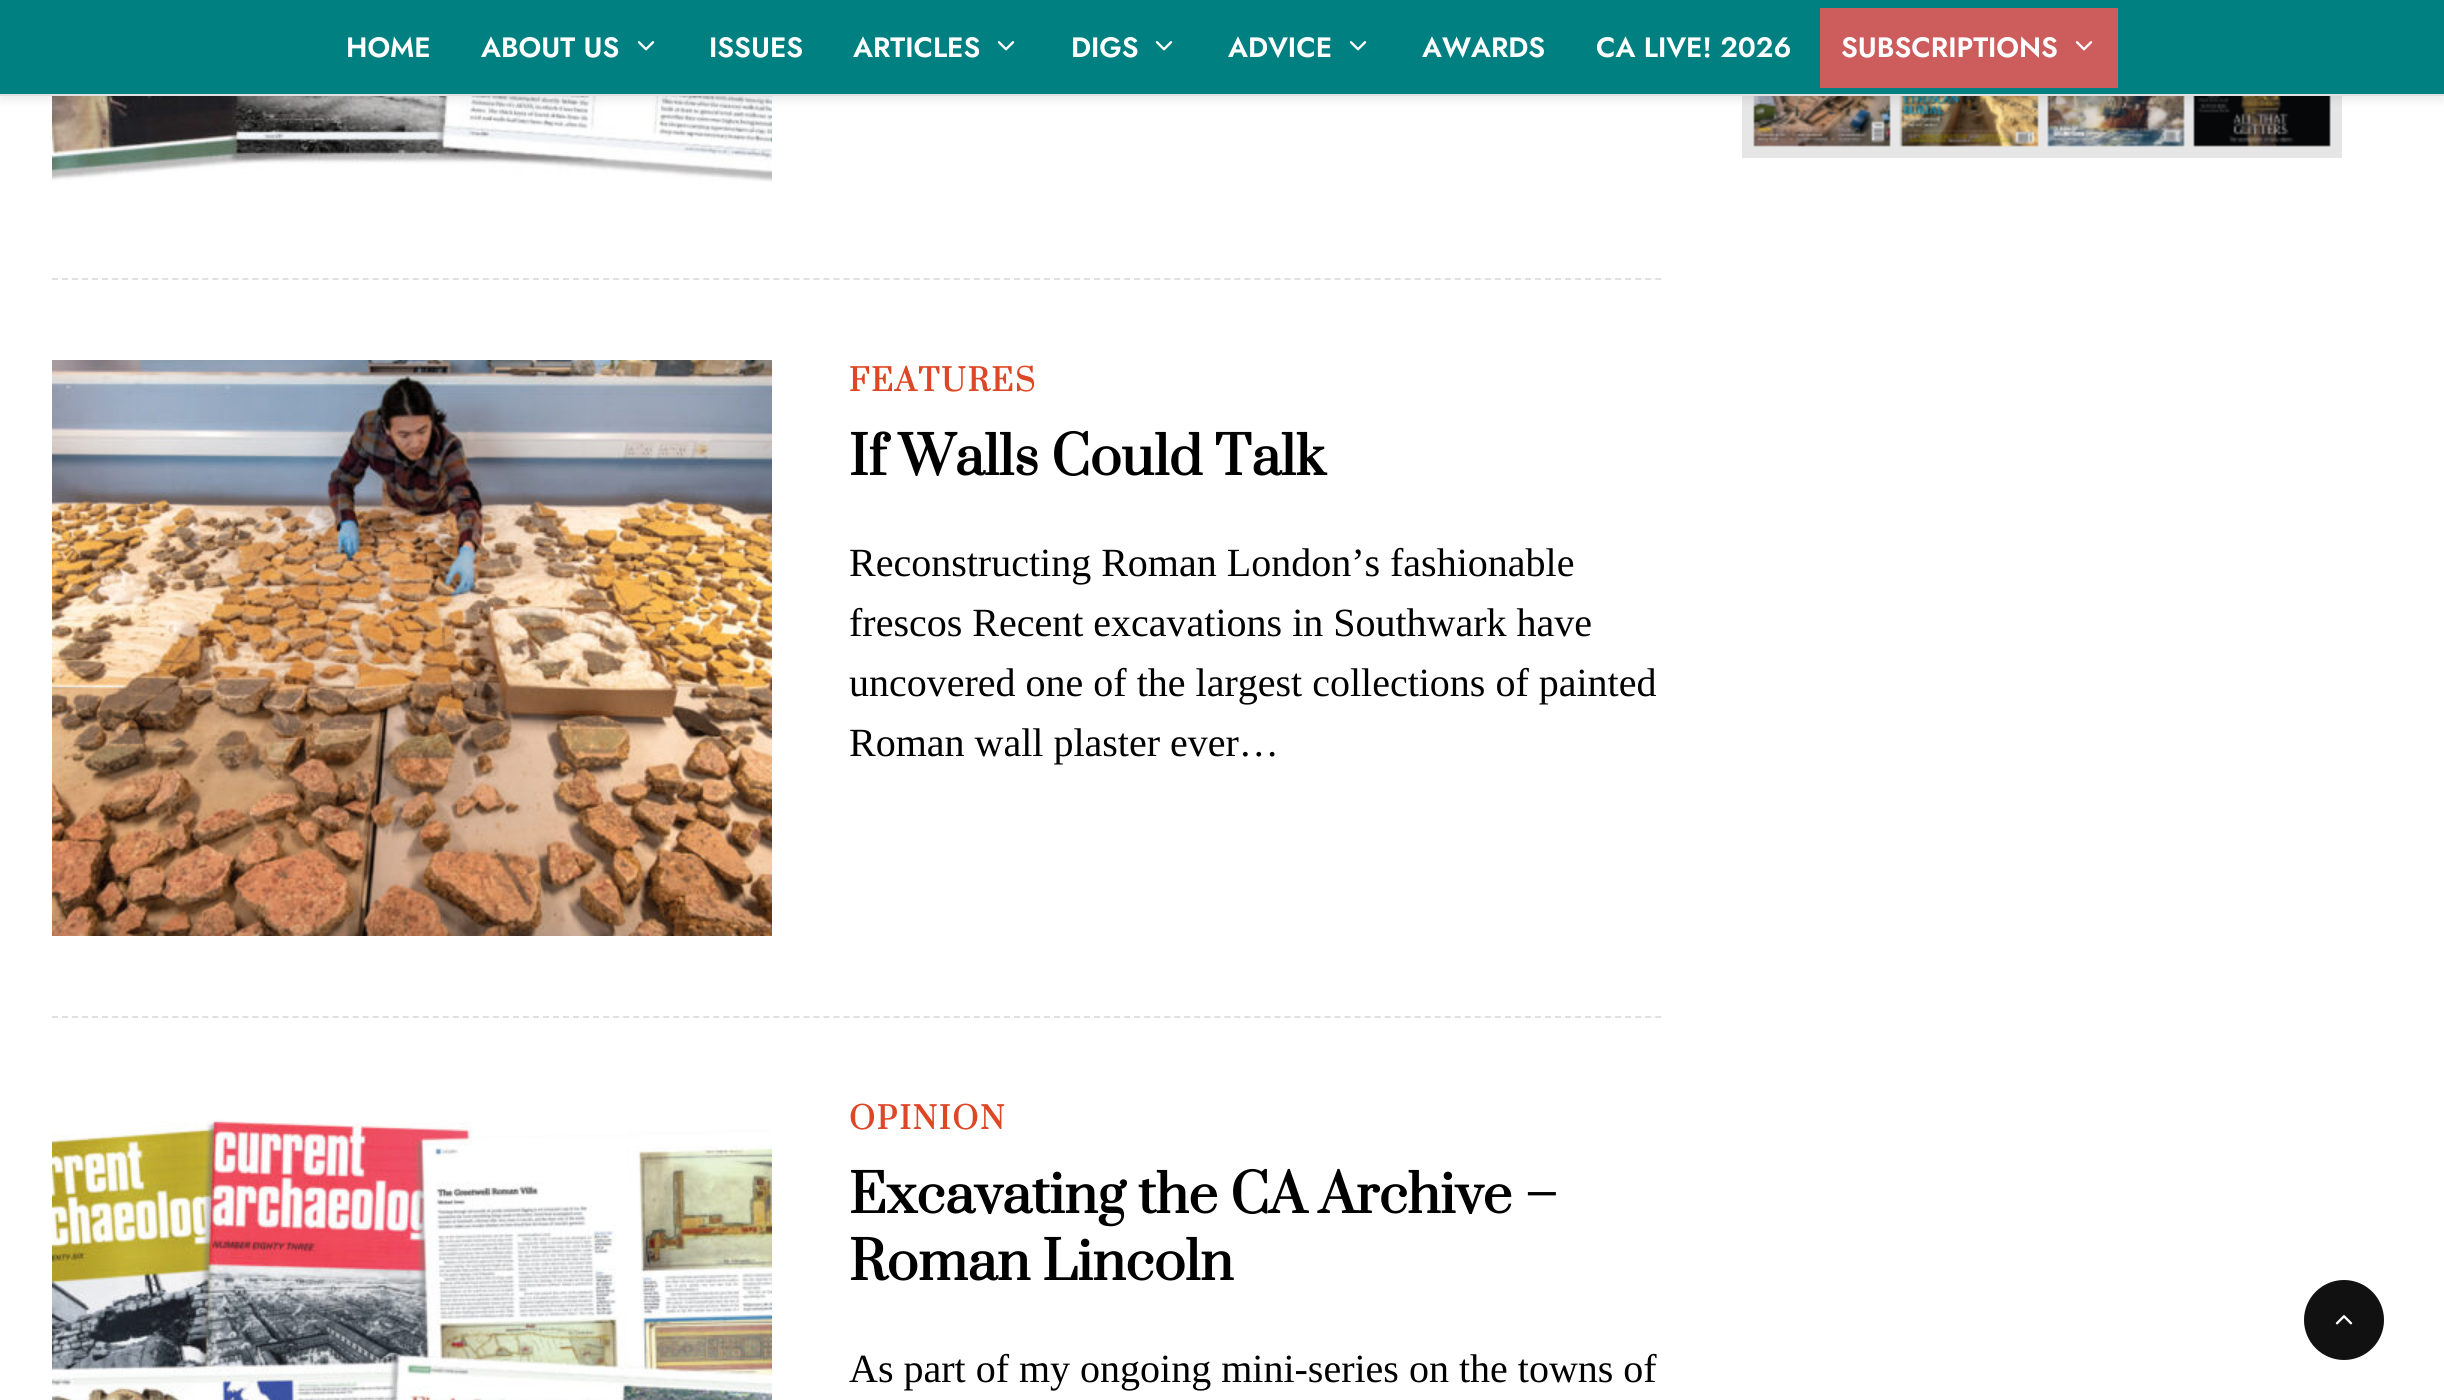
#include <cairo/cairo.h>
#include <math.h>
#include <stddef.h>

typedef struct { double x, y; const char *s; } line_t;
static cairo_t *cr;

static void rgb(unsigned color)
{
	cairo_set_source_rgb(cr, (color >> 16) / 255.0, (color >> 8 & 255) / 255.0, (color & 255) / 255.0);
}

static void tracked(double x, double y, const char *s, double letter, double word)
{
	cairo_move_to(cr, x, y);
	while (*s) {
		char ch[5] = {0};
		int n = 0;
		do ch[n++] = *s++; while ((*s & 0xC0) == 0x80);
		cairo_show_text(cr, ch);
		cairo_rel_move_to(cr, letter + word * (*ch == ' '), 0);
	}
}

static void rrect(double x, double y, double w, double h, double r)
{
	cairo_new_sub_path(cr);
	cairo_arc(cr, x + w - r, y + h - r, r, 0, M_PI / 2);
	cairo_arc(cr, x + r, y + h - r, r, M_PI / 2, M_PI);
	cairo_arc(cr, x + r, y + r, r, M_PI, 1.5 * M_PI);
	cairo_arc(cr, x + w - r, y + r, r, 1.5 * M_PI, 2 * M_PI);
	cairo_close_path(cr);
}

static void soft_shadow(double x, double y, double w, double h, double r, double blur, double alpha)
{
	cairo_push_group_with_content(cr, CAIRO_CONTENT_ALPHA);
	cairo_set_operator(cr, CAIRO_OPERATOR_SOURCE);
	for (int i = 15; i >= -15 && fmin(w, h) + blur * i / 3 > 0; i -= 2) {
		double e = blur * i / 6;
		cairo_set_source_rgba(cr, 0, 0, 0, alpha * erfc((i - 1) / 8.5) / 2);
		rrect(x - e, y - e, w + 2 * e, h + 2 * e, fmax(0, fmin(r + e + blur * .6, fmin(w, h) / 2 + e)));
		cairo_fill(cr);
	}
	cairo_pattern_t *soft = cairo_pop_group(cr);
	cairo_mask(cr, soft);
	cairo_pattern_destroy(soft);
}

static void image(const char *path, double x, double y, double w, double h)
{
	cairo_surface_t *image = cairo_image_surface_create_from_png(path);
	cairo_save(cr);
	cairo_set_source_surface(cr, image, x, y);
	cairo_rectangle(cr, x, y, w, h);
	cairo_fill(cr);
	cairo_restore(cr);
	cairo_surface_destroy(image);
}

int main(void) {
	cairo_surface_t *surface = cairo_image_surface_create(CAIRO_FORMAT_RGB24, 2444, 1400);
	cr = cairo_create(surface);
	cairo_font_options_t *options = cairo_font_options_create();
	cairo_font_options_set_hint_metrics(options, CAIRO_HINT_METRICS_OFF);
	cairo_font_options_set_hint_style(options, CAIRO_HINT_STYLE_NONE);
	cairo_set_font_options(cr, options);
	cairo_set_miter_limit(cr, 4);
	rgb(0xffffff);
	cairo_paint(cr);
	image("img/3.png", 1742, 96, 600, 62);
	image("img/4.png", 52, 96, 720, 86);
	rgb(0x000000);
	soft_shadow(0, 4, 2444, 96, 0, 5, 0.08);
	rgb(0x008080);
	cairo_rectangle(cr, 0, 0, 2444, 94);
	cairo_fill(cr);
	rgb(0xe0e0e0);
	cairo_rectangle(cr, 0, 94, 2444, 2);
	cairo_fill(cr);
	image("img/1.png", 637, 41, 18, 10);
	image("img/1.png", 997, 41, 18, 10);
	image("img/1.png", 1155, 41, 18, 10);
	image("img/1.png", 1349, 41, 18, 10);
	rgb(0xcd5c5c);
	cairo_rectangle(cr, 1820, 8, 298, 80);
	cairo_fill(cr);
	image("img/2.png", 2075, 41, 18, 10);
	cairo_new_path(cr);
	cairo_move_to(cr, 52, 279);
	cairo_line_to(cr, 1662, 279);
	rgb(0xe0e0e0);
	cairo_set_dash(cr, (double[]){6, 4.02}, 2, 0);
	cairo_stroke(cr);
	image("img/5.png", 52, 360, 720, 576);
	cairo_new_path(cr);
	cairo_move_to(cr, 52, 1017);
	cairo_line_to(cr, 1662, 1017);
	cairo_stroke(cr);
	image("img/6.png", 52, 1119, 720, 281);
	rgb(0x111111);
	cairo_arc(cr, 2344, 1320, 39, 0, 2 * M_PI);
	cairo_fill_preserve(cr);
	cairo_set_dash(cr, NULL, 0, 0);
	cairo_stroke(cr);
	image("img/7.png", 2335, 1315, 18, 10);
	cairo_select_font_face(cr, "Jost SemiBold", CAIRO_FONT_SLANT_NORMAL, CAIRO_FONT_WEIGHT_NORMAL);
	cairo_set_font_size(cr, 28);
	rgb(0xffffff);
	{
		static const line_t items[] = {
			{346, 57, "HOME"},
			{481, 57, "ABOUT US"},
			{709, 57, "ISSUES"},
			{853, 57, "ARTICLES"},
			{1071, 57, "DIGS"},
			{1228, 57, "ADVICE"},
			{1422, 57, "AWARDS"},
			{1596, 57, "CA LIVE! 2026"},
			{1841, 57, "SUBSCRIPTIONS"},
		};
		for (size_t i = 0; i < sizeof items / sizeof *items; i++) {
			cairo_move_to(cr, items[i].x, items[i].y);
			cairo_show_text(cr, items[i].s);
		}
	}
	cairo_select_font_face(cr, "Prata", CAIRO_FONT_SLANT_NORMAL, CAIRO_FONT_WEIGHT_BOLD);
	cairo_set_font_size(cr, 30);
	rgb(0xdd4725);
	tracked(849, 391, "FEATURES", 2, 0);
	cairo_set_font_size(cr, 52);
	rgb(0x000000);
	cairo_move_to(cr, 849, 475);
	cairo_show_text(cr, "If Walls Could Talk");
	cairo_select_font_face(cr, "Liberation Serif", CAIRO_FONT_SLANT_NORMAL, CAIRO_FONT_WEIGHT_NORMAL);
	cairo_set_font_size(cr, 40);
	{
		static const line_t items[] = {
			{849, 576, "Reconstructing Roman London’s fashionable"},
			{849, 636, "frescos Recent excavations in Southwark have"},
			{849, 696, "uncovered one of the largest collections of painted"},
			{849, 756, "Roman wall plaster ever…"},
		};
		for (size_t i = 0; i < sizeof items / sizeof *items; i++) {
			cairo_move_to(cr, items[i].x, items[i].y);
			cairo_show_text(cr, items[i].s);
		}
	}
	cairo_select_font_face(cr, "Prata", CAIRO_FONT_SLANT_NORMAL, CAIRO_FONT_WEIGHT_BOLD);
	cairo_set_font_size(cr, 30);
	rgb(0xdd4725);
	tracked(849, 1129, "OPINION", 2, 0);
	cairo_set_font_size(cr, 52);
	rgb(0x000000);
	cairo_move_to(cr, 849, 1213);
	cairo_show_text(cr, "Excavating the CA Archive –");
	cairo_move_to(cr, 849, 1280);
	cairo_show_text(cr, "Roman Lincoln");
	cairo_select_font_face(cr, "Liberation Serif", CAIRO_FONT_SLANT_NORMAL, CAIRO_FONT_WEIGHT_NORMAL);
	cairo_set_font_size(cr, 40);
	cairo_move_to(cr, 849, 1382);
	cairo_show_text(cr, "As part of my ongoing mini-series on the towns of");
	cairo_surface_write_to_png(surface, "page.png");
	cairo_font_options_destroy(options);
	cairo_destroy(cr);
	cairo_surface_destroy(surface);
	return 0;
}
